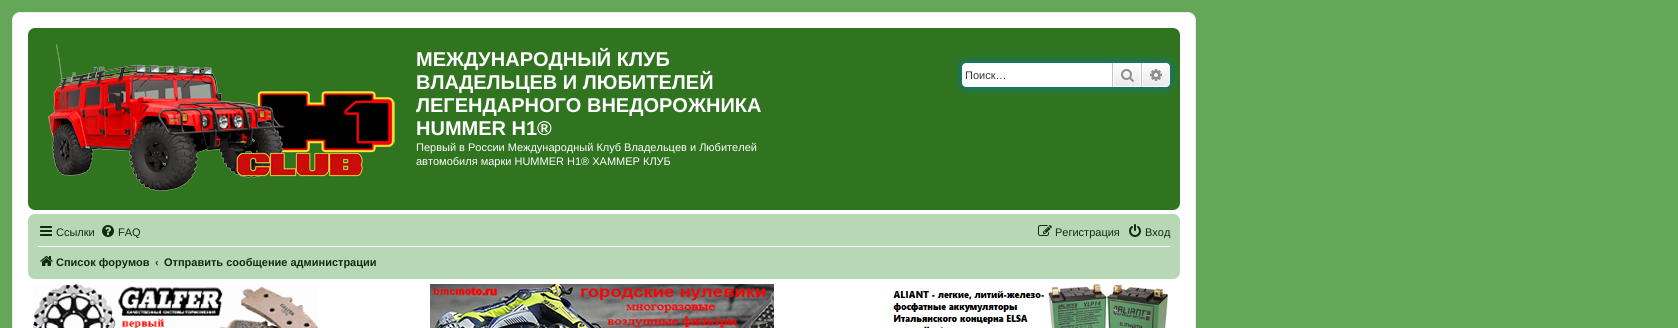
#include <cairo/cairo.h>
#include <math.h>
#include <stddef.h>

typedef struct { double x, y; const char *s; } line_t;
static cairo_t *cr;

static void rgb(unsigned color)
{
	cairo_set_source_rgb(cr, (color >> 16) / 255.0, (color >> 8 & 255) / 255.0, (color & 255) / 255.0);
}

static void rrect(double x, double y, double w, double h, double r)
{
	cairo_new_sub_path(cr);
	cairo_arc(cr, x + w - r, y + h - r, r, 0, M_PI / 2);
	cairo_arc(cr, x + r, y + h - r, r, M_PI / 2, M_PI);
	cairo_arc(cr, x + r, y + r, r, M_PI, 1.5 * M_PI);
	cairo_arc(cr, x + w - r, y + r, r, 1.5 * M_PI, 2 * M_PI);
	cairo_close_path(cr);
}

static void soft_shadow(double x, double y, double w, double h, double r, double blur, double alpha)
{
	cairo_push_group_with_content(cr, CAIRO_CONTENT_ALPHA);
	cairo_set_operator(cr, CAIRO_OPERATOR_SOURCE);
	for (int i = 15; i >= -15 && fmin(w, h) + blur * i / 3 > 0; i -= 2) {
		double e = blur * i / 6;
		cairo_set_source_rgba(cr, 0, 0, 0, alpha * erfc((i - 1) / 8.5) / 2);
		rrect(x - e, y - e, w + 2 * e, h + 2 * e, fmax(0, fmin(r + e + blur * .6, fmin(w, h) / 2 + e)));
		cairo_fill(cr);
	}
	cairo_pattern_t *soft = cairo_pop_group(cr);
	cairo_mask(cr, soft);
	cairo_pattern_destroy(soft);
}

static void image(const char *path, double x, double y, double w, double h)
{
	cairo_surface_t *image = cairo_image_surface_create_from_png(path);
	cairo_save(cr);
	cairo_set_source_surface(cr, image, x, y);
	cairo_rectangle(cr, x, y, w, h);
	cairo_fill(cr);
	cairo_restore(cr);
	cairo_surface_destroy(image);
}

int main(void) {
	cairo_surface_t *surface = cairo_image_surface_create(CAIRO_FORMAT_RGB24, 1678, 328);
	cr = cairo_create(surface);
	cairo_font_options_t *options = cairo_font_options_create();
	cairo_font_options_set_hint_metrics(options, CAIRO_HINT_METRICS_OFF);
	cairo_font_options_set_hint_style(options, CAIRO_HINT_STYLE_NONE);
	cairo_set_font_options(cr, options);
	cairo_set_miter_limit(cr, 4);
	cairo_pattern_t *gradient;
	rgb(0x64a758);
	cairo_paint(cr);
	rgb(0xffffff);
	rrect(12.5, 12.5, 1183, 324, 7.5);
	cairo_fill_preserve(cr);
	rgb(0xe6e9ed);
	cairo_set_line_width(cr, 1);
	cairo_stroke(cr);
	rgb(0x30741f);
	rrect(28, 28, 1152, 182, 7);
	cairo_fill(cr);
	image("img/1.png", 48, 44, 347, 147);
	rgb(0x0075b0);
	soft_shadow(962, 63, 208, 24, 4, 5, 1);
	rgb(0xffffff);
	cairo_new_path(cr);
	cairo_move_to(cr, 966, 63);
	cairo_line_to(cr, 1112, 63);
	cairo_line_to(cr, 1112, 87);
	cairo_line_to(cr, 966, 87);
	cairo_curve_to(cr, 964, 87, 962, 85, 962, 83);
	cairo_line_to(cr, 962, 67);
	cairo_curve_to(cr, 962, 65, 964, 63, 966, 63);
	cairo_close_path(cr);
	cairo_fill(cr);
	gradient = cairo_pattern_create_linear(1127, 63, 1127, 87);
	cairo_pattern_add_color_stop_rgba(gradient, 0, 1, 1, 1, 1);
	cairo_pattern_add_color_stop_rgba(gradient, 1, 0.914, 0.914, 0.914, 1);
	cairo_set_source(cr, gradient);
	cairo_pattern_destroy(gradient);
	cairo_rectangle(cr, 1114, 64, 26, 22);
	cairo_fill(cr);
	cairo_rectangle(cr, 1113.5, 63.5, 27, 23);
	rgb(0xffffff);
	cairo_stroke(cr);
	rgb(0xc7c3bf);
	cairo_rectangle(cr, 1141, 63, 1, 24);
	cairo_fill(cr);
	cairo_rectangle(cr, 1112, 63, 1, 24);
	cairo_fill(cr);
	image("img/2.png", 1121, 69, 13, 13);
	gradient = cairo_pattern_create_linear(1156, 63, 1156, 87);
	cairo_pattern_add_color_stop_rgba(gradient, 0, 1, 1, 1, 1);
	cairo_pattern_add_color_stop_rgba(gradient, 1, 0.914, 0.914, 0.914, 1);
	cairo_set_source(cr, gradient);
	cairo_pattern_destroy(gradient);
	cairo_new_path(cr);
	cairo_move_to(cr, 1142.5, 63.5);
	cairo_line_to(cr, 1166, 63.5);
	cairo_curve_to(cr, 1168, 63.5, 1169.5, 65, 1169.5, 67);
	cairo_line_to(cr, 1169.5, 83);
	cairo_curve_to(cr, 1169.5, 85, 1168, 86.5, 1166, 86.5);
	cairo_line_to(cr, 1142.5, 86.5);
	cairo_close_path(cr);
	cairo_fill_preserve(cr);
	rgb(0xffffff);
	cairo_stroke(cr);
	image("img/3.png", 1150, 69, 12, 12);
	rgb(0xb7d8b5);
	rrect(28, 214, 1152, 65, 7);
	cairo_fill(cr);
	image("img/4.png", 40, 226, 12, 10);
	image("img/5.png", 102, 225, 12, 12);
	image("img/6.png", 1038, 225, 14, 11);
	image("img/7.png", 1129, 224, 12, 13);
	rgb(0xffffff);
	cairo_rectangle(cr, 38, 246, 1132, 1);
	cairo_fill(cr);
	image("img/8.png", 40, 256, 13, 10);
	image("img/9.png", 33, 284, 285, 44);
	image("img/10.png", 430, 284, 344, 44);
	image("img/11.png", 893, 284, 275, 44);
	cairo_select_font_face(cr, "Liberation Sans", CAIRO_FONT_SLANT_NORMAL, CAIRO_FONT_WEIGHT_BOLD);
	cairo_set_font_size(cr, 20);
	{
		static const line_t items[] = {
			{416, 66, "МЕЖДУНАРОДНЫЙ КЛУБ"},
			{416, 89, "ВЛАДЕЛЬЦЕВ И ЛЮБИТЕЛЕЙ"},
			{416, 112, "ЛЕГЕНДАРНОГО ВНЕДОРОЖНИКА"},
			{416, 135, "HUMMER H1®"},
		};
		for (size_t i = 0; i < sizeof items / sizeof *items; i++) {
			cairo_move_to(cr, items[i].x, items[i].y);
			cairo_show_text(cr, items[i].s);
		}
	}
	cairo_select_font_face(cr, "Liberation Sans", CAIRO_FONT_SLANT_NORMAL, CAIRO_FONT_WEIGHT_NORMAL);
	cairo_set_font_size(cr, 11);
	cairo_move_to(cr, 416, 151);
	cairo_show_text(cr, "Первый в России Международный Клуб Владельцев и Любителей");
	cairo_move_to(cr, 416, 165);
	cairo_show_text(cr, "автомобиля марки HUMMER H1® ХАММЕР КЛУБ");
	rgb(0x333333);
	cairo_move_to(cr, 965, 79);
	cairo_show_text(cr, "Поиск…");
	rgb(0x0f2b0d);
	{
		static const line_t items[] = {
			{56, 236, "Ссылки"},
			{118, 236, "FAQ"},
			{1055, 236, "Регистрация"},
			{1145, 236, "Вход"},
		};
		for (size_t i = 0; i < sizeof items / sizeof *items; i++) {
			cairo_move_to(cr, items[i].x, items[i].y);
			cairo_show_text(cr, items[i].s);
		}
	}
	cairo_select_font_face(cr, "Liberation Sans", CAIRO_FONT_SLANT_NORMAL, CAIRO_FONT_WEIGHT_BOLD);
	cairo_move_to(cr, 56, 266);
	cairo_show_text(cr, "Список форумов");
	rgb(0x2d3d2f);
	cairo_move_to(cr, 155, 266);
	cairo_show_text(cr, "‹");
	rgb(0x0f2b0d);
	cairo_move_to(cr, 164, 266);
	cairo_show_text(cr, "Отправить сообщение администрации");
	cairo_surface_write_to_png(surface, "page.png");
	cairo_font_options_destroy(options);
	cairo_destroy(cr);
	cairo_surface_destroy(surface);
	return 0;
}
